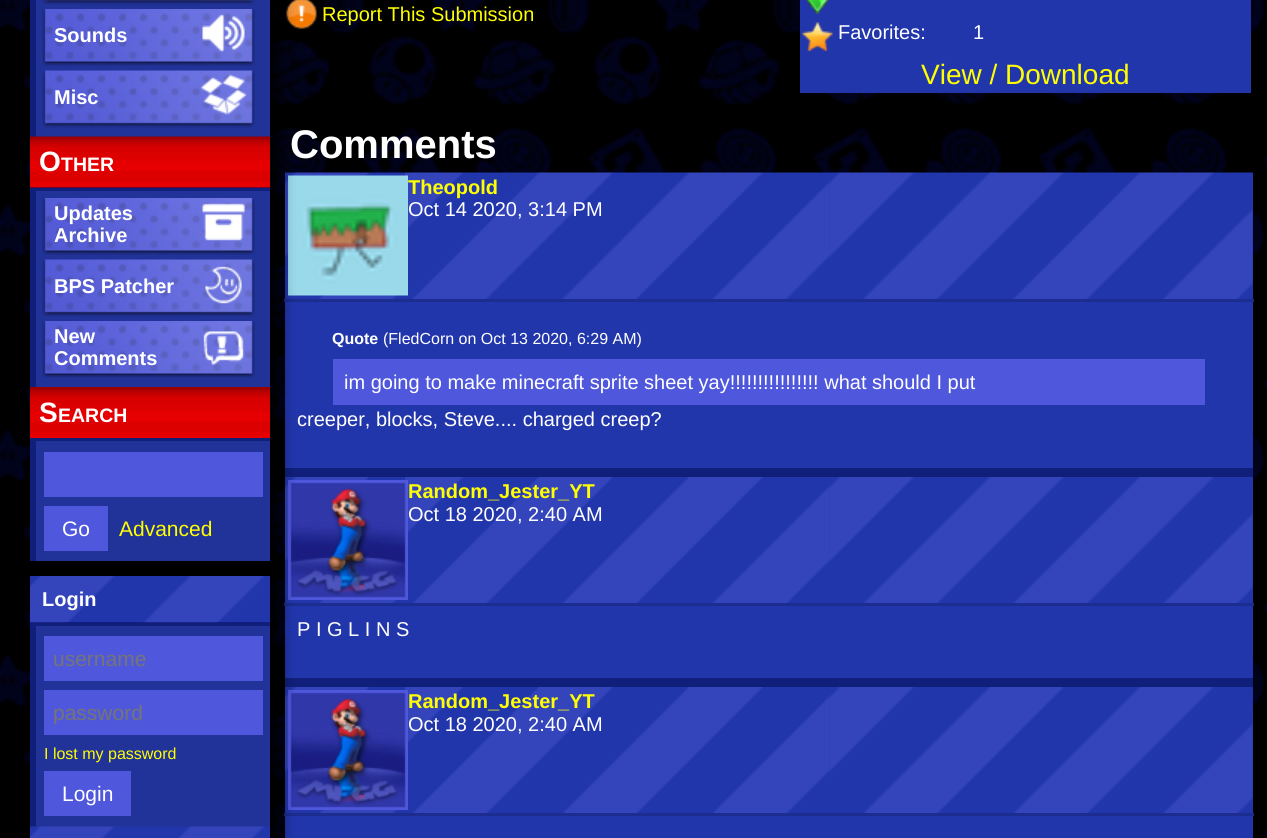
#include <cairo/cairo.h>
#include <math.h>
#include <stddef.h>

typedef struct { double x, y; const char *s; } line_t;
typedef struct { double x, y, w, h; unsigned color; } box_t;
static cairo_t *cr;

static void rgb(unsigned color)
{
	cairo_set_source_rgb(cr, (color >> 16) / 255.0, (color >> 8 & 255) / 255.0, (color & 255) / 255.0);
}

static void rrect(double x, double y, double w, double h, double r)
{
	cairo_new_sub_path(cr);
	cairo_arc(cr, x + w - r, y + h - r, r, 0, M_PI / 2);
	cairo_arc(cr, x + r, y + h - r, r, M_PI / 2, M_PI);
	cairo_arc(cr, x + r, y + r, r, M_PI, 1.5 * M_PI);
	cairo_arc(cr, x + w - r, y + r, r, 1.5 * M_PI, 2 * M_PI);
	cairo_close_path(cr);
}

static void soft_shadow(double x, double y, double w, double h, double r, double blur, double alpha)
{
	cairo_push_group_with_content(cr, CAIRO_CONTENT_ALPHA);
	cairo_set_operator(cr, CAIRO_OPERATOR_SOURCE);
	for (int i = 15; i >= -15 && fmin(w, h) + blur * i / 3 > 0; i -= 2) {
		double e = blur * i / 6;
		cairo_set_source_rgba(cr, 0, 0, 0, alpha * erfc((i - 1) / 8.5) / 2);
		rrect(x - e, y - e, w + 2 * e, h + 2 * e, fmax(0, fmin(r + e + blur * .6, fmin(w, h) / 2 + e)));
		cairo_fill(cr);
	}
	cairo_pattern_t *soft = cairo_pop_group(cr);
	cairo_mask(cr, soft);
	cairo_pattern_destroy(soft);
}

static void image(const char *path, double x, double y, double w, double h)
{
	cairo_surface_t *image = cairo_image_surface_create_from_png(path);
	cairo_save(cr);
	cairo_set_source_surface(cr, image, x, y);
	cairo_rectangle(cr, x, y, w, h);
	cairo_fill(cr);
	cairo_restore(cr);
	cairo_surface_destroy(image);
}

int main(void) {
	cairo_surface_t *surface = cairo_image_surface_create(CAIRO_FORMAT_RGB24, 1267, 838);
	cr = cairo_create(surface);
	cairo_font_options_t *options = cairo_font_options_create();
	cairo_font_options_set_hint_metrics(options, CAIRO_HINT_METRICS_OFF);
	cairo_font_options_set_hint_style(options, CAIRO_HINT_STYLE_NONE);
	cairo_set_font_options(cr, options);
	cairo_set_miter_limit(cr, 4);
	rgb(0xffffff);
	cairo_paint(cr);
	image("img/1.png", 0, 0, 1267, 838);
	image("img/14.png", 286, 0, 31, 29);
	rgb(0x2236ac);
	cairo_rectangle(cr, 285, 173, 968, 665);
	cairo_fill(cr);
	rgb(0x1c2c8f);
	cairo_rectangle(cr, 284, 299, 970, 3);
	cairo_fill(cr);
	image("img/18.png", 285, 172, 120, 127);
	image("img/20.png", 405, 172, 425, 127);
	image("img/19.png", 288, 175, 120, 121);
	rgb(0x101f79);
	cairo_rectangle(cr, 285, 468, 968, 9);
	cairo_fill(cr);
	rgb(0x1c2c8f);
	cairo_rectangle(cr, 284, 603, 970, 3);
	cairo_fill(cr);
	image("img/22.png", 285, 477, 120, 126);
	image("img/24.png", 405, 477, 425, 126);
	image("img/23.png", 288, 480, 120, 120);
	rgb(0x101f79);
	cairo_rectangle(cr, 285, 678, 968, 9);
	cairo_fill(cr);
	rgb(0x1c2c8f);
	cairo_rectangle(cr, 284, 813, 970, 3);
	cairo_fill(cr);
	image("img/22.png", 285, 687, 120, 126);
	image("img/25.png", 405, 687, 425, 126);
	image("img/23.png", 288, 690, 120, 120);
	cairo_save(cr);
	cairo_set_fill_rule(cr, CAIRO_FILL_RULE_EVEN_ODD);
	cairo_new_path(cr);
	cairo_move_to(cr, 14, 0);
	cairo_line_to(cr, 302, 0);
	cairo_line_to(cr, 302, 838);
	cairo_line_to(cr, 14, 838);
	cairo_close_path(cr);
	cairo_move_to(cr, 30, -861);
	cairo_line_to(cr, 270, -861);
	cairo_line_to(cr, 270, 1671);
	cairo_line_to(cr, 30, 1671);
	cairo_close_path(cr);
	cairo_clip(cr);
	rgb(0x000000);
	soft_shadow(38, -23, 240, 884, 0, 7.5, 1);
	cairo_restore(cr);
	rgb(0x101f79);
	cairo_rectangle(cr, 30, 0, 6, 137);
	cairo_fill(cr);
	rgb(0x213298);
	cairo_rectangle(cr, 36, 0, 234, 137);
	cairo_fill(cr);
	image("img/2.png", 42, 0, 213, 5);
	image("img/3.png", 42, 9, 213, 57);
	image("img/4.png", 202, 14, 43, 38);
	image("img/5.png", 42, 70, 213, 58);
	image("img/6.png", 200, 74, 47, 41);
	rgb(0x101f79);
	cairo_rectangle(cr, 30, 188, 240, 199);
	cairo_fill(cr);
	rgb(0x000059);
	cairo_rectangle(cr, 30, 187, 240, 1);
	cairo_fill(cr);
	image("img/7.png", 30, 136, 240, 52);
	rgb(0x213298);
	cairo_rectangle(cr, 36, 191, 234, 196);
	cairo_fill(cr);
	image("img/3.png", 42, 198, 213, 57);
	image("img/8.png", 202, 203, 43, 38);
	image("img/5.png", 42, 259, 213, 58);
	image("img/9.png", 205, 266, 37, 38);
	image("img/3.png", 42, 321, 213, 57);
	image("img/10.png", 203, 331, 41, 34);
	rgb(0x101f79);
	cairo_rectangle(cr, 30, 438, 240, 123);
	cairo_fill(cr);
	image("img/11.png", 30, 387, 240, 51);
	{
		static const box_t items[] = {
			{36, 441, 234, 120, 0x213298},
			{44, 452, 219, 45, 0x4f57dc},
			{44, 506, 64, 45, 0x4f57dc},
			{30, 623, 240, 204, 0x101f79},
			{30, 622, 240, 1, 0x000059},
		};
		for (size_t i = 0; i < sizeof items / sizeof *items; i++) {
			rgb(items[i].color);
			cairo_rectangle(cr, items[i].x, items[i].y, items[i].w, items[i].h);
			cairo_fill(cr);
		}
	}
	image("img/12.png", 30, 576, 240, 47);
	{
		static const box_t items[] = {
			{36, 626, 234, 201, 0x213298},
			{44, 636, 219, 45, 0x4f57dc},
			{44, 690, 219, 45, 0x4f57dc},
			{44, 771, 87, 45, 0x4f57dc},
		};
		for (size_t i = 0; i < sizeof items / sizeof *items; i++) {
			rgb(items[i].color);
			cairo_rectangle(cr, items[i].x, items[i].y, items[i].w, items[i].h);
			cairo_fill(cr);
		}
	}
	image("img/13.png", 30, 826, 240, 12);
	rgb(0x2236ac);
	cairo_rectangle(cr, 800, 0, 451, 93);
	cairo_fill(cr);
	image("img/15.png", 805, 0, 25, 14);
	image("img/16.png", 802, 22, 31, 29);
	image("img/17.png", 829, 172, 424, 127);
	rgb(0x4f57dc);
	cairo_rectangle(cr, 333, 359, 872, 46);
	cairo_fill(cr);
	image("img/21.png", 829, 477, 424, 126);
	image("img/21.png", 829, 687, 424, 126);
	cairo_select_font_face(cr, "Liberation Sans", CAIRO_FONT_SLANT_NORMAL, CAIRO_FONT_WEIGHT_BOLD);
	cairo_set_font_size(cr, 20);
	rgb(0xffffff);
	cairo_move_to(cr, 54, 42);
	cairo_show_text(cr, "Sounds");
	cairo_move_to(cr, 54, 104);
	cairo_show_text(cr, "Misc");
	cairo_set_font_size(cr, 28);
	cairo_move_to(cr, 39, 171);
	cairo_show_text(cr, "O");
	cairo_set_font_size(cr, 19.5);
	cairo_move_to(cr, 61, 171);
	cairo_show_text(cr, "THER");
	cairo_set_font_size(cr, 20);
	{
		static const line_t items[] = {
			{54, 220, "Updates"},
			{54, 242, "Archive"},
			{54, 293, "BPS Patcher"},
			{54, 343, "New"},
			{54, 365, "Comments"},
		};
		for (size_t i = 0; i < sizeof items / sizeof *items; i++) {
			cairo_move_to(cr, items[i].x, items[i].y);
			cairo_show_text(cr, items[i].s);
		}
	}
	cairo_set_font_size(cr, 28);
	cairo_move_to(cr, 39, 422);
	cairo_show_text(cr, "S");
	cairo_set_font_size(cr, 19.5);
	cairo_move_to(cr, 58, 422);
	cairo_show_text(cr, "EARCH");
	cairo_select_font_face(cr, "Liberation Sans", CAIRO_FONT_SLANT_NORMAL, CAIRO_FONT_WEIGHT_NORMAL);
	cairo_set_font_size(cr, 21);
	cairo_move_to(cr, 62, 536);
	cairo_show_text(cr, "Go");
	rgb(0xffff00);
	cairo_move_to(cr, 119, 536);
	cairo_show_text(cr, "Advanced");
	cairo_select_font_face(cr, "Liberation Sans", CAIRO_FONT_SLANT_NORMAL, CAIRO_FONT_WEIGHT_BOLD);
	cairo_set_font_size(cr, 20);
	rgb(0xffffff);
	cairo_move_to(cr, 42, 606);
	cairo_show_text(cr, "Login");
	cairo_select_font_face(cr, "Liberation Sans", CAIRO_FONT_SLANT_NORMAL, CAIRO_FONT_WEIGHT_NORMAL);
	cairo_set_font_size(cr, 21);
	rgb(0x757575);
	cairo_move_to(cr, 53, 666);
	cairo_show_text(cr, "username");
	cairo_move_to(cr, 53, 720);
	cairo_show_text(cr, "password");
	cairo_set_font_size(cr, 16);
	rgb(0xffff00);
	cairo_move_to(cr, 44, 759);
	cairo_show_text(cr, "I lost my password");
	cairo_set_font_size(cr, 21);
	rgb(0xffffff);
	cairo_move_to(cr, 62, 801);
	cairo_show_text(cr, "Login");
	cairo_set_font_size(cr, 20);
	rgb(0xffff00);
	cairo_move_to(cr, 322, 21);
	cairo_show_text(cr, "Report This Submission");
	rgb(0xffffff);
	cairo_move_to(cr, 838, 39);
	cairo_show_text(cr, "Favorites:");
	cairo_move_to(cr, 973, 39);
	cairo_show_text(cr, "1");
	cairo_set_font_size(cr, 28);
	rgb(0xffff00);
	cairo_move_to(cr, 921, 84);
	cairo_show_text(cr, "View / Download");
	cairo_select_font_face(cr, "Liberation Sans", CAIRO_FONT_SLANT_NORMAL, CAIRO_FONT_WEIGHT_BOLD);
	cairo_set_font_size(cr, 40);
	rgb(0xffffff);
	cairo_move_to(cr, 290, 158);
	cairo_show_text(cr, "Comments");
	cairo_set_font_size(cr, 20);
	rgb(0xffff00);
	cairo_move_to(cr, 408, 194);
	cairo_show_text(cr, "Theopold");
	cairo_select_font_face(cr, "Liberation Sans", CAIRO_FONT_SLANT_NORMAL, CAIRO_FONT_WEIGHT_NORMAL);
	rgb(0xffffff);
	cairo_move_to(cr, 408, 216);
	cairo_show_text(cr, "Oct 14 2020, 3:14 PM");
	cairo_select_font_face(cr, "Liberation Sans", CAIRO_FONT_SLANT_NORMAL, CAIRO_FONT_WEIGHT_BOLD);
	cairo_set_font_size(cr, 16);
	cairo_move_to(cr, 332, 344);
	cairo_show_text(cr, "Quote");
	cairo_select_font_face(cr, "Liberation Sans", CAIRO_FONT_SLANT_NORMAL, CAIRO_FONT_WEIGHT_NORMAL);
	cairo_move_to(cr, 383, 344);
	cairo_show_text(cr, "(FledCorn on Oct 13 2020, 6:29 AM)");
	cairo_set_font_size(cr, 20);
	cairo_move_to(cr, 344, 389);
	cairo_show_text(cr, "im going to make minecraft sprite sheet yay!!!!!!!!!!!!!!!! what should I put");
	cairo_move_to(cr, 297, 426);
	cairo_show_text(cr, "creeper, blocks, Steve.... charged creep?");
	cairo_select_font_face(cr, "Liberation Sans", CAIRO_FONT_SLANT_NORMAL, CAIRO_FONT_WEIGHT_BOLD);
	rgb(0xffff00);
	cairo_move_to(cr, 408, 498);
	cairo_show_text(cr, "Random_Jester_YT");
	cairo_select_font_face(cr, "Liberation Sans", CAIRO_FONT_SLANT_NORMAL, CAIRO_FONT_WEIGHT_NORMAL);
	rgb(0xffffff);
	cairo_move_to(cr, 408, 521);
	cairo_show_text(cr, "Oct 18 2020, 2:40 AM");
	cairo_move_to(cr, 297, 636);
	cairo_show_text(cr, "P I G L I N S");
	cairo_select_font_face(cr, "Liberation Sans", CAIRO_FONT_SLANT_NORMAL, CAIRO_FONT_WEIGHT_BOLD);
	rgb(0xffff00);
	cairo_move_to(cr, 408, 708);
	cairo_show_text(cr, "Random_Jester_YT");
	cairo_select_font_face(cr, "Liberation Sans", CAIRO_FONT_SLANT_NORMAL, CAIRO_FONT_WEIGHT_NORMAL);
	rgb(0xffffff);
	cairo_move_to(cr, 408, 731);
	cairo_show_text(cr, "Oct 18 2020, 2:40 AM");
	cairo_surface_write_to_png(surface, "page.png");
	cairo_font_options_destroy(options);
	cairo_destroy(cr);
	cairo_surface_destroy(surface);
	return 0;
}
